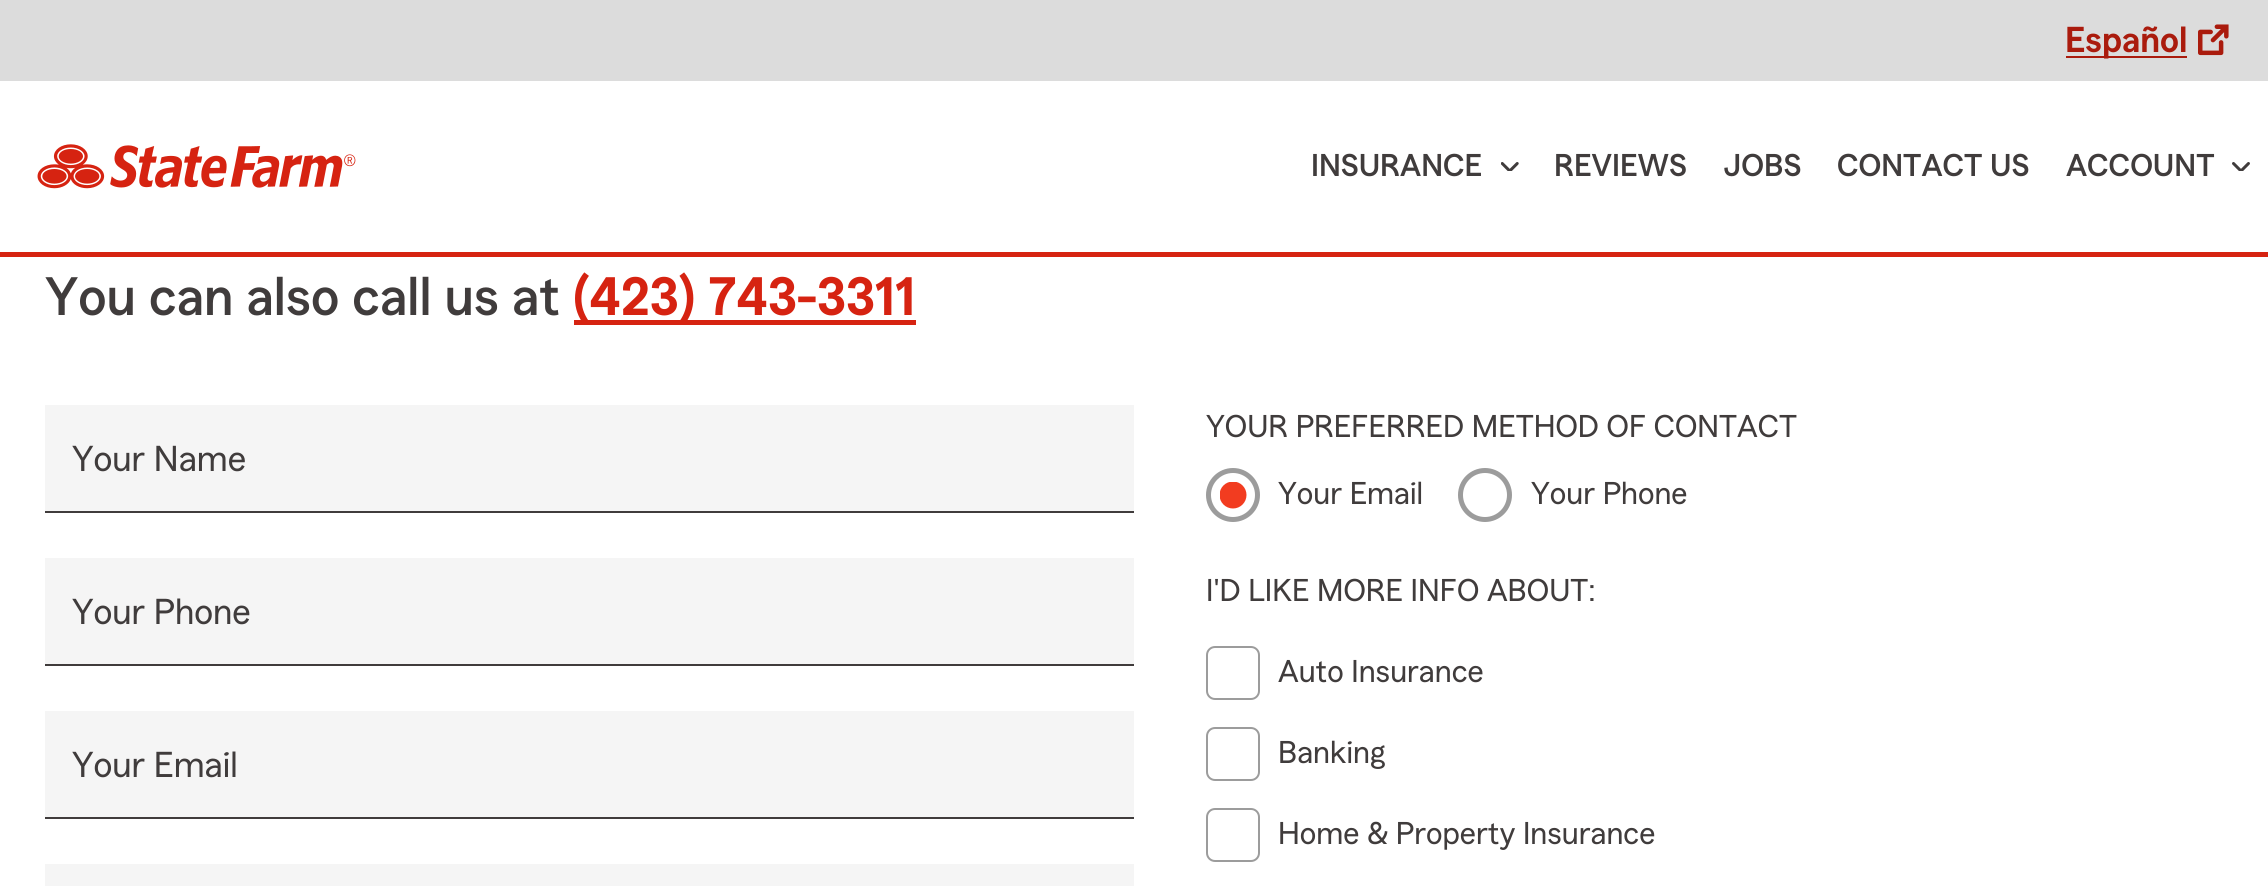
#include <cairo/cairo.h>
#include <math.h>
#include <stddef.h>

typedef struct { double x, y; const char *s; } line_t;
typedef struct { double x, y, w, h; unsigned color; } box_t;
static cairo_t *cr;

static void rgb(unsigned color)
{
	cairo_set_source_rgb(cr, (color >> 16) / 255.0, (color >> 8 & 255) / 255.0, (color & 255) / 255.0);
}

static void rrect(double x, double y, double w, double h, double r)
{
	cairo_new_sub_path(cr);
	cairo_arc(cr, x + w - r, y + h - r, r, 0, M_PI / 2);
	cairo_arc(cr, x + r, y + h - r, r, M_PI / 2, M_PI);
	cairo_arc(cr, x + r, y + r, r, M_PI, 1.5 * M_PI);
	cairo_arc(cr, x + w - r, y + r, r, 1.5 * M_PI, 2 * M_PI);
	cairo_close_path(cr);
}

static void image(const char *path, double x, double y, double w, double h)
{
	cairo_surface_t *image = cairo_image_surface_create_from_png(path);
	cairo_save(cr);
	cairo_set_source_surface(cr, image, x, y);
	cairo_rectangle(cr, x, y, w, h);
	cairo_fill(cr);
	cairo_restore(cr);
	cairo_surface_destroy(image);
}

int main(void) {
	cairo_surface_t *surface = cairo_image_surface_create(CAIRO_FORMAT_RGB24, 2268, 886);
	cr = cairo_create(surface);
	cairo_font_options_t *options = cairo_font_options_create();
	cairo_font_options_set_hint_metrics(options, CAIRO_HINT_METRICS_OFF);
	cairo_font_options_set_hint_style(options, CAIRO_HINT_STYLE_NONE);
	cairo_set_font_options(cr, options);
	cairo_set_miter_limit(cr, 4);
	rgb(0xffffff);
	cairo_paint(cr);
	rgb(0xdcdcdc);
	cairo_rectangle(cr, 0, 0, 2268, 81);
	cairo_fill(cr);
	rgb(0xaa1b0d);
	cairo_rectangle(cr, 2066, 56, 121, 2);
	cairo_fill(cr);
	image("img/1.png", 2198, 24, 31, 32);
	rgb(0xd62311);
	cairo_rectangle(cr, 0, 252, 2268, 5);
	cairo_fill(cr);
	image("img/2.png", 37, 144, 319, 45);
	image("img/3.png", 1501, 162, 18, 9);
	image("img/4.png", 2232, 162, 18, 9);
	{
		static const box_t items[] = {
			{574, 320, 342, 5, 0xd62311},
			{45, 405, 1089, 106, 0xf5f5f5},
			{45, 511, 1089, 2, 0x403c3c},
			{45, 558, 1089, 106, 0xf5f5f5},
			{45, 664, 1089, 2, 0x403c3c},
			{45, 711, 1089, 106, 0xf5f5f5},
			{45, 817, 1089, 2, 0x403c3c},
			{45, 864, 1089, 22, 0xf5f5f5},
		};
		for (size_t i = 0; i < sizeof items / sizeof *items; i++) {
			rgb(items[i].color);
			cairo_rectangle(cr, items[i].x, items[i].y, items[i].w, items[i].h);
			cairo_fill(cr);
		}
	}
	cairo_save(cr);
	cairo_rectangle(cr, 1220, 482, 27, 27);
	cairo_clip(cr);
	rgb(0xf23c20);
	cairo_arc(cr, 1233, 495, 13.5, 0, 2 * M_PI);
	cairo_fill(cr);
	cairo_restore(cr);
	cairo_arc(cr, 1233, 495, 24.5, 0, 2 * M_PI);
	rgb(0x9c9c9c);
	cairo_set_line_width(cr, 5);
	cairo_stroke(cr);
	cairo_arc(cr, 1485, 495, 24.5, 0, 2 * M_PI);
	cairo_stroke(cr);
	rrect(1207, 647, 52, 52, 8);
	cairo_set_line_width(cr, 2);
	cairo_stroke(cr);
	rrect(1207, 728, 52, 52, 8);
	cairo_stroke(cr);
	rrect(1207, 809, 52, 52, 8);
	cairo_stroke(cr);
	cairo_select_font_face(cr, "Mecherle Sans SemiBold", CAIRO_FONT_SLANT_NORMAL, CAIRO_FONT_WEIGHT_NORMAL);
	cairo_set_font_size(cr, 36);
	rgb(0xaa1b0d);
	cairo_move_to(cr, 2065, 52);
	cairo_show_text(cr, "Español");
	cairo_select_font_face(cr, "Mecherle Sans Medium", CAIRO_FONT_SLANT_NORMAL, CAIRO_FONT_WEIGHT_NORMAL);
	cairo_set_font_size(cr, 31.5);
	rgb(0x403c3c);
	{
		static const line_t items[] = {
			{1311, 176, "INSURANCE"},
			{1554, 176, "REVIEWS"},
			{1723, 176, "JOBS"},
			{1837, 176, "CONTACT US"},
			{2066, 176, "ACCOUNT"},
		};
		for (size_t i = 0; i < sizeof items / sizeof *items; i++) {
			cairo_move_to(cr, items[i].x, items[i].y);
			cairo_show_text(cr, items[i].s);
		}
	}
	cairo_set_font_size(cr, 54);
	cairo_move_to(cr, 45, 315);
	cairo_show_text(cr, "You can also call us at");
	cairo_select_font_face(cr, "Mecherle Sans SemiBold", CAIRO_FONT_SLANT_NORMAL, CAIRO_FONT_WEIGHT_NORMAL);
	rgb(0xd62311);
	cairo_move_to(cr, 573, 315);
	cairo_show_text(cr, "(423) 743-3311");
	cairo_select_font_face(cr, "Mecherle Sans", CAIRO_FONT_SLANT_NORMAL, CAIRO_FONT_WEIGHT_NORMAL);
	cairo_set_font_size(cr, 36);
	rgb(0x403c3c);
	{
		static const line_t items[] = {
			{72, 471, "Your Name"},
			{72, 624, "Your Phone"},
			{72, 777, "Your Email"},
		};
		for (size_t i = 0; i < sizeof items / sizeof *items; i++) {
			cairo_move_to(cr, items[i].x, items[i].y);
			cairo_show_text(cr, items[i].s);
		}
	}
	cairo_set_font_size(cr, 31.5);
	{
		static const line_t items[] = {
			{1206, 437, "YOUR PREFERRED METHOD OF CONTACT"},
			{1278, 504, "Your Email"},
			{1531, 504, "Your Phone"},
			{1206, 601, "I'D LIKE MORE INFO ABOUT:"},
			{1278, 682, "Auto Insurance"},
			{1278, 763, "Banking"},
			{1278, 844, "Home & Property Insurance"},
		};
		for (size_t i = 0; i < sizeof items / sizeof *items; i++) {
			cairo_move_to(cr, items[i].x, items[i].y);
			cairo_show_text(cr, items[i].s);
		}
	}
	cairo_surface_write_to_png(surface, "page.png");
	cairo_font_options_destroy(options);
	cairo_destroy(cr);
	cairo_surface_destroy(surface);
	return 0;
}
